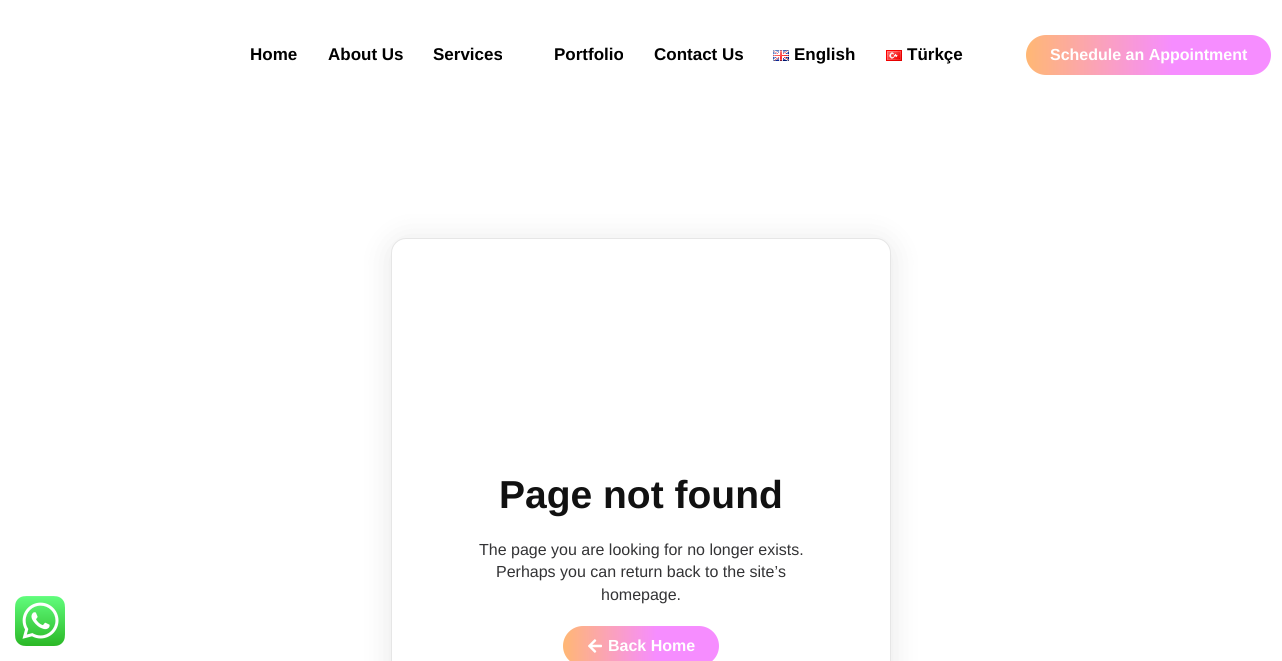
#include <cairo/cairo.h>
#include <math.h>
#include <stddef.h>

typedef struct { double x, y; const char *s; } line_t;
static cairo_t *cr;

static void rgb(unsigned color)
{
	cairo_set_source_rgb(cr, (color >> 16) / 255.0, (color >> 8 & 255) / 255.0, (color & 255) / 255.0);
}

static void rrect(double x, double y, double w, double h, double r)
{
	cairo_new_sub_path(cr);
	cairo_arc(cr, x + w - r, y + h - r, r, 0, M_PI / 2);
	cairo_arc(cr, x + r, y + h - r, r, M_PI / 2, M_PI);
	cairo_arc(cr, x + r, y + r, r, M_PI, 1.5 * M_PI);
	cairo_arc(cr, x + w - r, y + r, r, 1.5 * M_PI, 2 * M_PI);
	cairo_close_path(cr);
}

static void soft_shadow(double x, double y, double w, double h, double r, double blur, double alpha)
{
	cairo_push_group_with_content(cr, CAIRO_CONTENT_ALPHA);
	cairo_set_operator(cr, CAIRO_OPERATOR_SOURCE);
	for (int i = 15; i >= -15 && fmin(w, h) + blur * i / 3 > 0; i -= 2) {
		double e = blur * i / 6;
		cairo_set_source_rgba(cr, 0, 0, 0, alpha * erfc((i - 1) / 8.5) / 2);
		rrect(x - e, y - e, w + 2 * e, h + 2 * e, fmax(0, fmin(r + e + blur * .6, fmin(w, h) / 2 + e)));
		cairo_fill(cr);
	}
	cairo_pattern_t *soft = cairo_pop_group(cr);
	cairo_mask(cr, soft);
	cairo_pattern_destroy(soft);
}

static void image(const char *path, double x, double y, double w, double h)
{
	cairo_surface_t *image = cairo_image_surface_create_from_png(path);
	cairo_save(cr);
	cairo_set_source_surface(cr, image, x, y);
	cairo_rectangle(cr, x, y, w, h);
	cairo_fill(cr);
	cairo_restore(cr);
	cairo_surface_destroy(image);
}

int main(void) {
	cairo_surface_t *surface = cairo_image_surface_create(CAIRO_FORMAT_RGB24, 1282, 661);
	cr = cairo_create(surface);
	cairo_font_options_t *options = cairo_font_options_create();
	cairo_font_options_set_hint_metrics(options, CAIRO_HINT_METRICS_OFF);
	cairo_font_options_set_hint_style(options, CAIRO_HINT_STYLE_NONE);
	cairo_set_font_options(cr, options);
	cairo_set_miter_limit(cr, 4);
	cairo_pattern_t *gradient;
	rgb(0xffffff);
	cairo_paint(cr);
	image("img/1.png", 773, 50, 16, 11);
	image("img/2.png", 886, 50, 16, 11);
	gradient = cairo_pattern_create_linear(1026, 55, 1271, 55);
	cairo_pattern_add_color_stop_rgba(gradient, 0, 1, 0.718, 0.455, 1);
	cairo_pattern_add_color_stop_rgba(gradient, 0.6, 0.965, 0.553, 1, 1);
	cairo_set_source(cr, gradient);
	cairo_pattern_destroy(gradient);
	rrect(1026, 35, 245, 40, 20);
	cairo_fill(cr);
	image("img/3.png", 15, 596, 50, 50);
	rgb(0x000000);
	soft_shadow(391, 241, 500, 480, 15, 15, 0.1);
	rgb(0xffffff);
	rrect(391.5, 238.5, 499, 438, 14.5);
	cairo_fill_preserve(cr);
	rgb(0xe6e6e6);
	cairo_set_line_width(cr, 1);
	cairo_stroke(cr);
	gradient = cairo_pattern_create_linear(563, 646, 719, 646);
	cairo_pattern_add_color_stop_rgba(gradient, 0, 1, 0.718, 0.455, 1);
	cairo_pattern_add_color_stop_rgba(gradient, 0.6, 0.965, 0.553, 1, 1);
	cairo_set_source(cr, gradient);
	cairo_pattern_destroy(gradient);
	rrect(563, 626, 156, 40, 20);
	cairo_fill(cr);
	image("img/4.png", 588, 639, 14, 14);
	cairo_select_font_face(cr, "Liberation Sans", CAIRO_FONT_SLANT_NORMAL, CAIRO_FONT_WEIGHT_BOLD);
	cairo_set_font_size(cr, 17);
	rgb(0x000000);
	{
		static const line_t items[] = {
			{250, 60, "Home"},
			{328, 60, "About Us"},
			{433, 60, "Services"},
			{554, 60, "Portfolio"},
			{654, 60, "Contact Us"},
			{794, 60, "English"},
			{907, 60, "Türkçe"},
		};
		for (size_t i = 0; i < sizeof items / sizeof *items; i++) {
			cairo_move_to(cr, items[i].x, items[i].y);
			cairo_show_text(cr, items[i].s);
		}
	}
	cairo_set_font_size(cr, 16);
	rgb(0xffffff);
	cairo_move_to(cr, 1050, 60);
	cairo_show_text(cr, "Schedule an Appointment");
	cairo_set_font_size(cr, 39);
	rgb(0x111111);
	cairo_move_to(cr, 499, 508);
	cairo_show_text(cr, "Page not found");
	cairo_select_font_face(cr, "Liberation Sans", CAIRO_FONT_SLANT_NORMAL, CAIRO_FONT_WEIGHT_NORMAL);
	cairo_set_font_size(cr, 16);
	rgb(0x333335);
	{
		static const line_t items[] = {
			{479, 555, "The page you are looking for no longer exists."},
			{496, 577, "Perhaps you can return back to the site’s"},
			{601, 600, "homepage."},
		};
		for (size_t i = 0; i < sizeof items / sizeof *items; i++) {
			cairo_move_to(cr, items[i].x, items[i].y);
			cairo_show_text(cr, items[i].s);
		}
	}
	cairo_select_font_face(cr, "Liberation Sans", CAIRO_FONT_SLANT_NORMAL, CAIRO_FONT_WEIGHT_BOLD);
	rgb(0xffffff);
	cairo_move_to(cr, 608, 651);
	cairo_show_text(cr, "Back Home");
	cairo_surface_write_to_png(surface, "page.png");
	cairo_font_options_destroy(options);
	cairo_destroy(cr);
	cairo_surface_destroy(surface);
	return 0;
}
